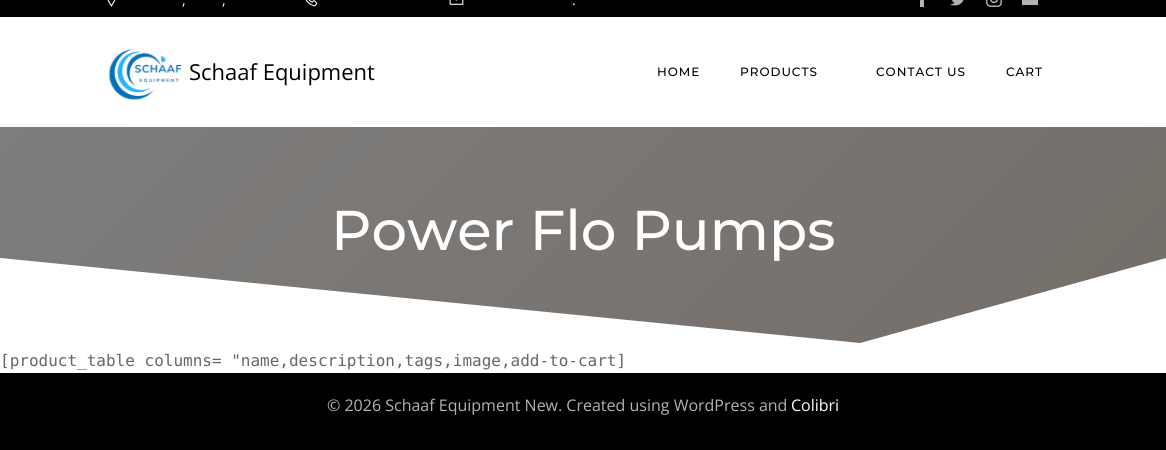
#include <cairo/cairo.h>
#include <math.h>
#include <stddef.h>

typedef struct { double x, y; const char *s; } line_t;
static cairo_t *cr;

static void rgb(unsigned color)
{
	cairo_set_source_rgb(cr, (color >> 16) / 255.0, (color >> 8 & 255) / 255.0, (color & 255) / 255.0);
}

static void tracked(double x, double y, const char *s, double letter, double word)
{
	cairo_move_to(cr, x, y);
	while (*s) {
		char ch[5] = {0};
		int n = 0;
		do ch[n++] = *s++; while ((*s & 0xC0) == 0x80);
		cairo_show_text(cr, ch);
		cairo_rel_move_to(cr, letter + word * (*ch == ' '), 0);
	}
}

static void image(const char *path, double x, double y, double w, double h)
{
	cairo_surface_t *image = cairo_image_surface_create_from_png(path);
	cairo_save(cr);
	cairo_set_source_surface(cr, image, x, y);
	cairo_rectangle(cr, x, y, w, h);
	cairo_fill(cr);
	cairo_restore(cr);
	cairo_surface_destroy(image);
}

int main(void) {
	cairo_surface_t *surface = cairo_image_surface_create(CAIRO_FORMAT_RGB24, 1166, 450);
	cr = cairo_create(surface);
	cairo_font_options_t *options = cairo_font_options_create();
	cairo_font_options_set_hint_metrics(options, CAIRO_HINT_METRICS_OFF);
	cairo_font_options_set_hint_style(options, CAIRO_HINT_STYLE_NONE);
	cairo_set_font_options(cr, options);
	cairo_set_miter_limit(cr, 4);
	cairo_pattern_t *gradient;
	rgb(0x000000);
	cairo_paint(cr);
	image("img/1.png", 107, 0, 9, 7);
	image("img/2.png", 305, 0, 13, 7);
	image("img/3.png", 449, 0, 15, 5);
	rgb(0xb3b3b3);
	cairo_rectangle(cr, 920, 0, 4, 7);
	cairo_fill(cr);
	image("img/4.png", 950, 0, 14, 6);
	image("img/5.png", 986, 0, 16, 7);
	cairo_rectangle(cr, 1022, 0, 16, 5);
	cairo_fill(cr);
	rgb(0xffffff);
	cairo_rectangle(cr, 0, 17, 1166, 110);
	cairo_fill(cr);
	image("img/6.png", 109, 49, 74, 51);
	gradient = cairo_pattern_create_linear(179, -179, 987, 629);
	cairo_pattern_add_color_stop_rgba(gradient, 0, 0.996, 0.992, 0.988, 1);
	cairo_pattern_add_color_stop_rgba(gradient, 1, 0.91, 0.855, 0.812, 1);
	cairo_set_source(cr, gradient);
	cairo_pattern_destroy(gradient);
	cairo_rectangle(cr, 0, 127, 1166, 216);
	cairo_fill(cr);
	cairo_set_source_rgba(cr, 0, 0, 0, 0.5);
	cairo_rectangle(cr, 0, 127, 1166, 216);
	cairo_fill(cr);
	rgb(0xffffff);
	cairo_new_path(cr);
	cairo_move_to(cr, 860, 343);
	cairo_line_to(cr, 0, 258);
	cairo_line_to(cr, 0, 348);
	cairo_line_to(cr, 1166, 348);
	cairo_line_to(cr, 1166, 258);
	cairo_close_path(cr);
	cairo_fill(cr);
	cairo_rectangle(cr, 0, 348, 1166, 25);
	cairo_fill(cr);
	cairo_select_font_face(cr, "Open Sans", CAIRO_FONT_SLANT_NORMAL, CAIRO_FONT_WEIGHT_NORMAL);
	cairo_set_font_size(cr, 14);
	{
		static const line_t items[] = {
			{182, 5, ","},
			{222, 5, ","},
			{572, 5, "."},
		};
		for (size_t i = 0; i < sizeof items / sizeof *items; i++) {
			cairo_move_to(cr, items[i].x, items[i].y);
			cairo_show_text(cr, items[i].s);
		}
	}
	cairo_set_font_size(cr, 22);
	rgb(0x000000);
	cairo_move_to(cr, 189, 80);
	cairo_show_text(cr, "Schaaf Equipment");
	cairo_select_font_face(cr, "Montserrat Medium", CAIRO_FONT_SLANT_NORMAL, CAIRO_FONT_WEIGHT_NORMAL);
	cairo_set_font_size(cr, 12);
	{
		static const line_t items[] = {
			{657, 76, "HOME"},
			{740, 76, "PRODUCTS"},
			{876, 76, "CONTACT US"},
			{1006, 76, "CART"},
		};
		for (size_t i = 0; i < sizeof items / sizeof *items; i++) {
			tracked(items[i].x, items[i].y, items[i].s, 1, 0);
		}
	}
	cairo_set_font_size(cr, 56);
	rgb(0xffffff);
	cairo_move_to(cr, 331, 250);
	cairo_show_text(cr, "Power Flo Pumps");
	cairo_select_font_face(cr, "DejaVu Sans Mono", CAIRO_FONT_SLANT_NORMAL, CAIRO_FONT_WEIGHT_NORMAL);
	cairo_set_font_size(cr, 16);
	rgb(0x666666);
	cairo_move_to(cr, 0, 366);
	cairo_show_text(cr, "[product_table columns= \"name,description,tags,image,add-to-cart]");
	cairo_select_font_face(cr, "Open Sans", CAIRO_FONT_SLANT_NORMAL, CAIRO_FONT_WEIGHT_NORMAL);
	rgb(0xb3b3b3);
	cairo_move_to(cr, 327, 411);
	cairo_show_text(cr, "© 2026 Schaaf Equipment New. Created using WordPress and");
	rgb(0xffffff);
	cairo_move_to(cr, 791, 411);
	cairo_show_text(cr, "Colibri");
	cairo_surface_write_to_png(surface, "page.png");
	cairo_font_options_destroy(options);
	cairo_destroy(cr);
	cairo_surface_destroy(surface);
	return 0;
}
